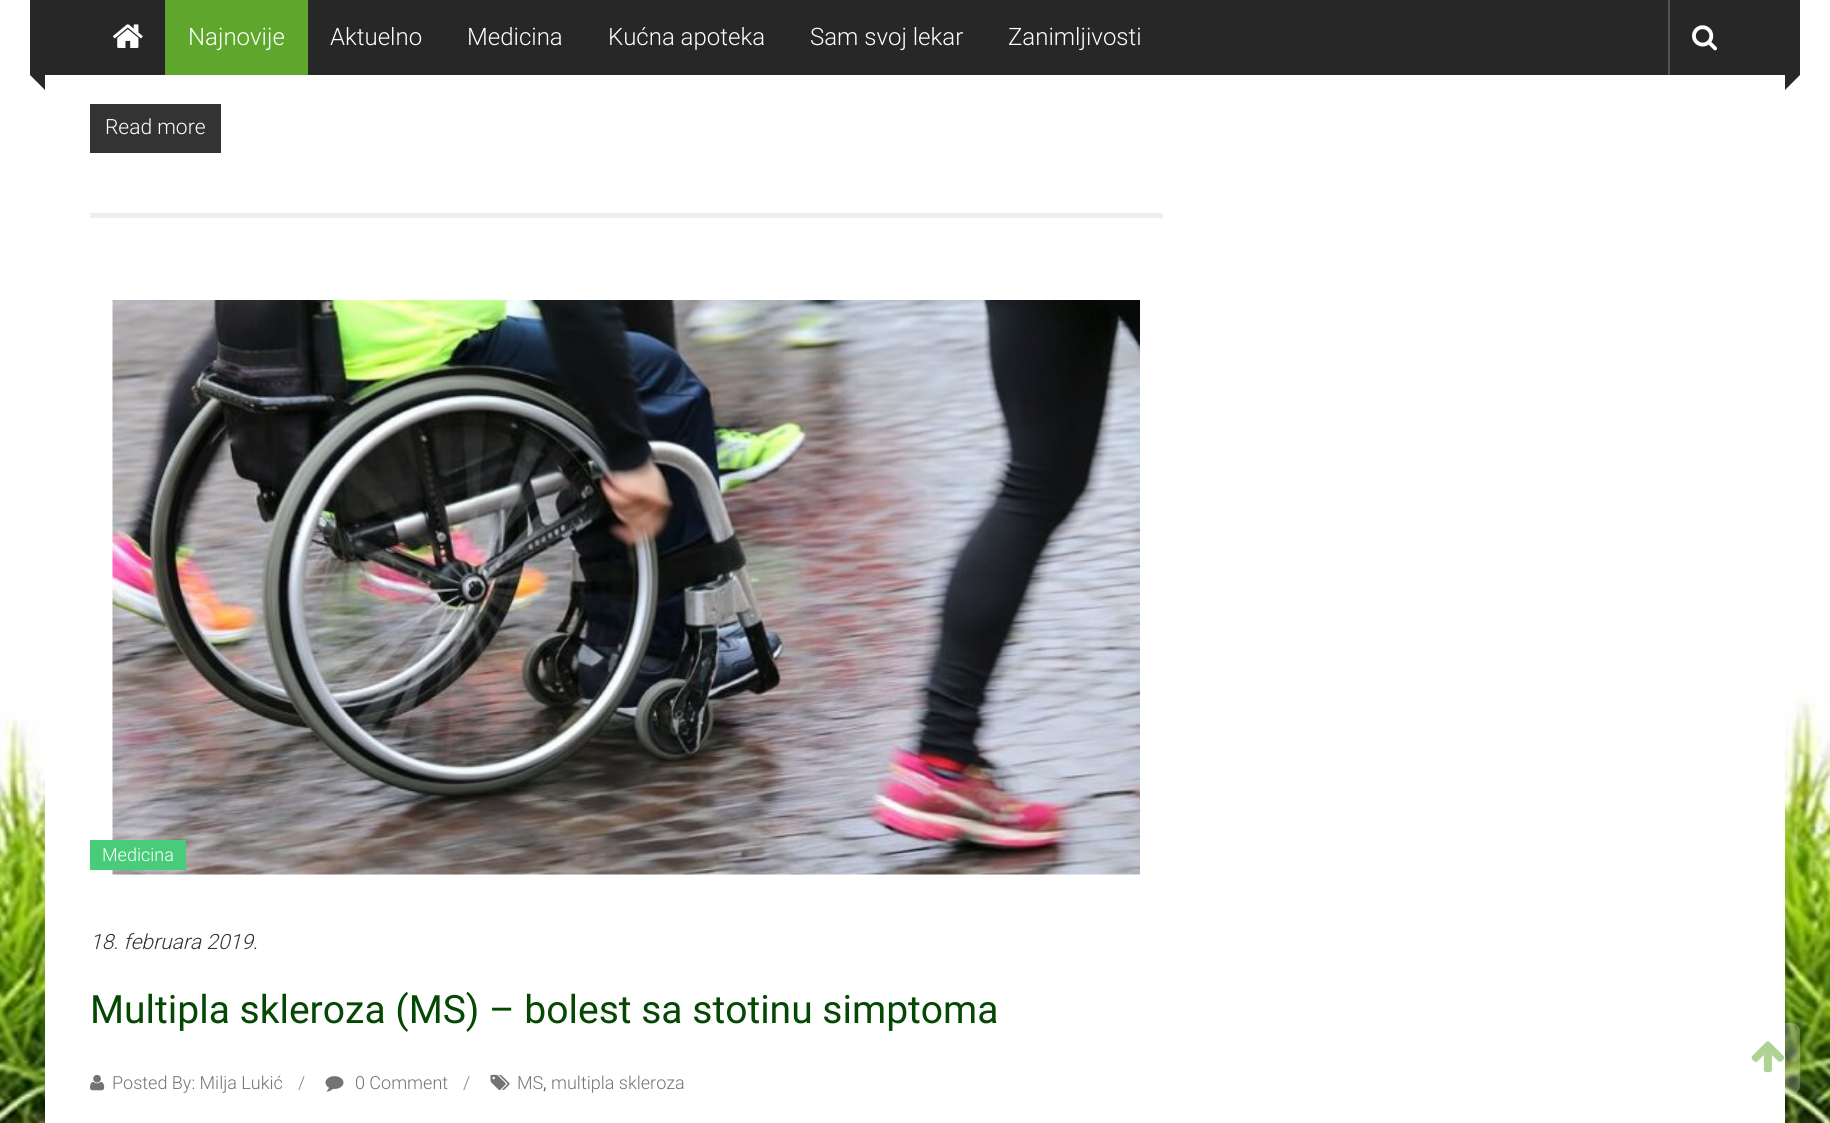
#include <cairo/cairo.h>
#include <math.h>
#include <stddef.h>

typedef struct { double x, y; const char *s; } line_t;
typedef struct { double x, y, w, h; unsigned color; } box_t;
static cairo_t *cr;

static void rgb(unsigned color)
{
	cairo_set_source_rgb(cr, (color >> 16) / 255.0, (color >> 8 & 255) / 255.0, (color & 255) / 255.0);
}

static void rrect(double x, double y, double w, double h, double r)
{
	cairo_new_sub_path(cr);
	cairo_arc(cr, x + w - r, y + h - r, r, 0, M_PI / 2);
	cairo_arc(cr, x + r, y + h - r, r, M_PI / 2, M_PI);
	cairo_arc(cr, x + r, y + r, r, M_PI, 1.5 * M_PI);
	cairo_arc(cr, x + w - r, y + r, r, 1.5 * M_PI, 2 * M_PI);
	cairo_close_path(cr);
}

static void image(const char *path, double x, double y, double w, double h)
{
	cairo_surface_t *image = cairo_image_surface_create_from_png(path);
	cairo_save(cr);
	cairo_set_source_surface(cr, image, x, y);
	cairo_rectangle(cr, x, y, w, h);
	cairo_fill(cr);
	cairo_restore(cr);
	cairo_surface_destroy(image);
}

int main(void) {
	cairo_surface_t *surface = cairo_image_surface_create(CAIRO_FORMAT_RGB24, 1830, 1123);
	cr = cairo_create(surface);
	cairo_font_options_t *options = cairo_font_options_create();
	cairo_font_options_set_hint_metrics(options, CAIRO_HINT_METRICS_OFF);
	cairo_font_options_set_hint_style(options, CAIRO_HINT_STYLE_NONE);
	cairo_set_font_options(cr, options);
	cairo_set_miter_limit(cr, 4);
	rgb(0xffffff);
	cairo_paint(cr);
	image("img/1.png", 0, 599, 1830, 524);
	rgb(0xffffff);
	cairo_rectangle(cr, 45, 599, 1740, 524);
	cairo_fill(cr);
	rgb(0x272727);
	cairo_rectangle(cr, 30, 0, 1755, 75);
	cairo_fill(cr);
	image("img/2.png", 113, 24, 30, 24);
	rgb(0x5fa62c);
	cairo_rectangle(cr, 165, 0, 143, 75);
	cairo_fill(cr);
	rgb(0x525252);
	cairo_rectangle(cr, 1668, 0, 2, 75);
	cairo_fill(cr);
	image("img/3.png", 1692, 25, 26, 26);
	rgb(0x272727);
	cairo_new_path(cr);
	cairo_move_to(cr, 45, 60);
	cairo_line_to(cr, 45, 90);
	cairo_line_to(cr, 30, 75);
	cairo_close_path(cr);
	cairo_fill(cr);
	cairo_new_path(cr);
	cairo_move_to(cr, 1785, 90);
	cairo_line_to(cr, 1785, 60);
	cairo_line_to(cr, 1800, 75);
	cairo_close_path(cr);
	cairo_fill(cr);
	{
		static const box_t items[] = {
			{1785, 0, 15, 75, 0x272727},
			{90, 213, 1073, 5, 0xeeeeee},
			{90, 104, 131, 49, 0x333333},
		};
		for (size_t i = 0; i < sizeof items / sizeof *items; i++) {
			rgb(items[i].color);
			cairo_rectangle(cr, items[i].x, items[i].y, items[i].w, items[i].h);
			cairo_fill(cr);
		}
	}
	image("img/4.png", 112, 300, 1028, 575);
	rgb(0x49cc79);
	cairo_rectangle(cr, 90, 840, 96, 30);
	cairo_fill(cr);
	image("img/5.png", 90, 1074, 15, 17);
	image("img/6.png", 325, 1076, 19, 16);
	image("img/7.png", 490, 1074, 20, 16);
	cairo_set_source_rgba(cr, 1, 1, 1, 0.25);
	rrect(1736, 1023, 64, 71, 8);
	cairo_fill(cr);
	image("img/8.png", 1751, 1041, 34, 32);
	cairo_select_font_face(cr, "Roboto Light", CAIRO_FONT_SLANT_NORMAL, CAIRO_FONT_WEIGHT_NORMAL);
	cairo_set_font_size(cr, 24);
	rgb(0xffffff);
	{
		static const line_t items[] = {
			{188, 45, "Najnovije"},
			{330, 45, "Aktuelno"},
			{467, 45, "Medicina"},
			{608, 45, "Kućna apoteka"},
			{810, 45, "Sam svoj lekar"},
			{1008, 45, "Zanimljivosti"},
		};
		for (size_t i = 0; i < sizeof items / sizeof *items; i++) {
			cairo_move_to(cr, items[i].x, items[i].y);
			cairo_show_text(cr, items[i].s);
		}
	}
	cairo_set_font_size(cr, 21);
	cairo_move_to(cr, 105, 134);
	cairo_show_text(cr, "Read more");
	cairo_set_font_size(cr, 18);
	cairo_move_to(cr, 102, 861);
	cairo_show_text(cr, "Medicina");
	cairo_select_font_face(cr, "Roboto Light", CAIRO_FONT_SLANT_ITALIC, CAIRO_FONT_WEIGHT_NORMAL);
	cairo_set_font_size(cr, 21);
	rgb(0x333333);
	cairo_move_to(cr, 90, 949);
	cairo_show_text(cr, "18. februara 2019.");
	cairo_select_font_face(cr, "Roboto", CAIRO_FONT_SLANT_NORMAL, CAIRO_FONT_WEIGHT_NORMAL);
	cairo_set_font_size(cr, 39);
	rgb(0x044804);
	cairo_move_to(cr, 90, 1023);
	cairo_show_text(cr, "Multipla skleroza (MS) – bolest sa stotinu simptoma");
	cairo_select_font_face(cr, "Roboto Light", CAIRO_FONT_SLANT_NORMAL, CAIRO_FONT_WEIGHT_NORMAL);
	cairo_set_font_size(cr, 18);
	rgb(0x767272);
	cairo_move_to(cr, 112, 1089);
	cairo_show_text(cr, "Posted By: Milja Lukić");
	rgb(0x808080);
	cairo_move_to(cr, 298, 1089);
	cairo_show_text(cr, "/");
	rgb(0x767272);
	cairo_move_to(cr, 355, 1089);
	cairo_show_text(cr, "0 Comment");
	rgb(0x808080);
	cairo_move_to(cr, 463, 1089);
	cairo_show_text(cr, "/");
	rgb(0x767272);
	cairo_move_to(cr, 517, 1089);
	cairo_show_text(cr, "MS");
	rgb(0x333333);
	cairo_move_to(cr, 543, 1089);
	cairo_show_text(cr, ",");
	rgb(0x767272);
	cairo_move_to(cr, 551, 1089);
	cairo_show_text(cr, "multipla skleroza");
	cairo_surface_write_to_png(surface, "page.png");
	cairo_font_options_destroy(options);
	cairo_destroy(cr);
	cairo_surface_destroy(surface);
	return 0;
}
